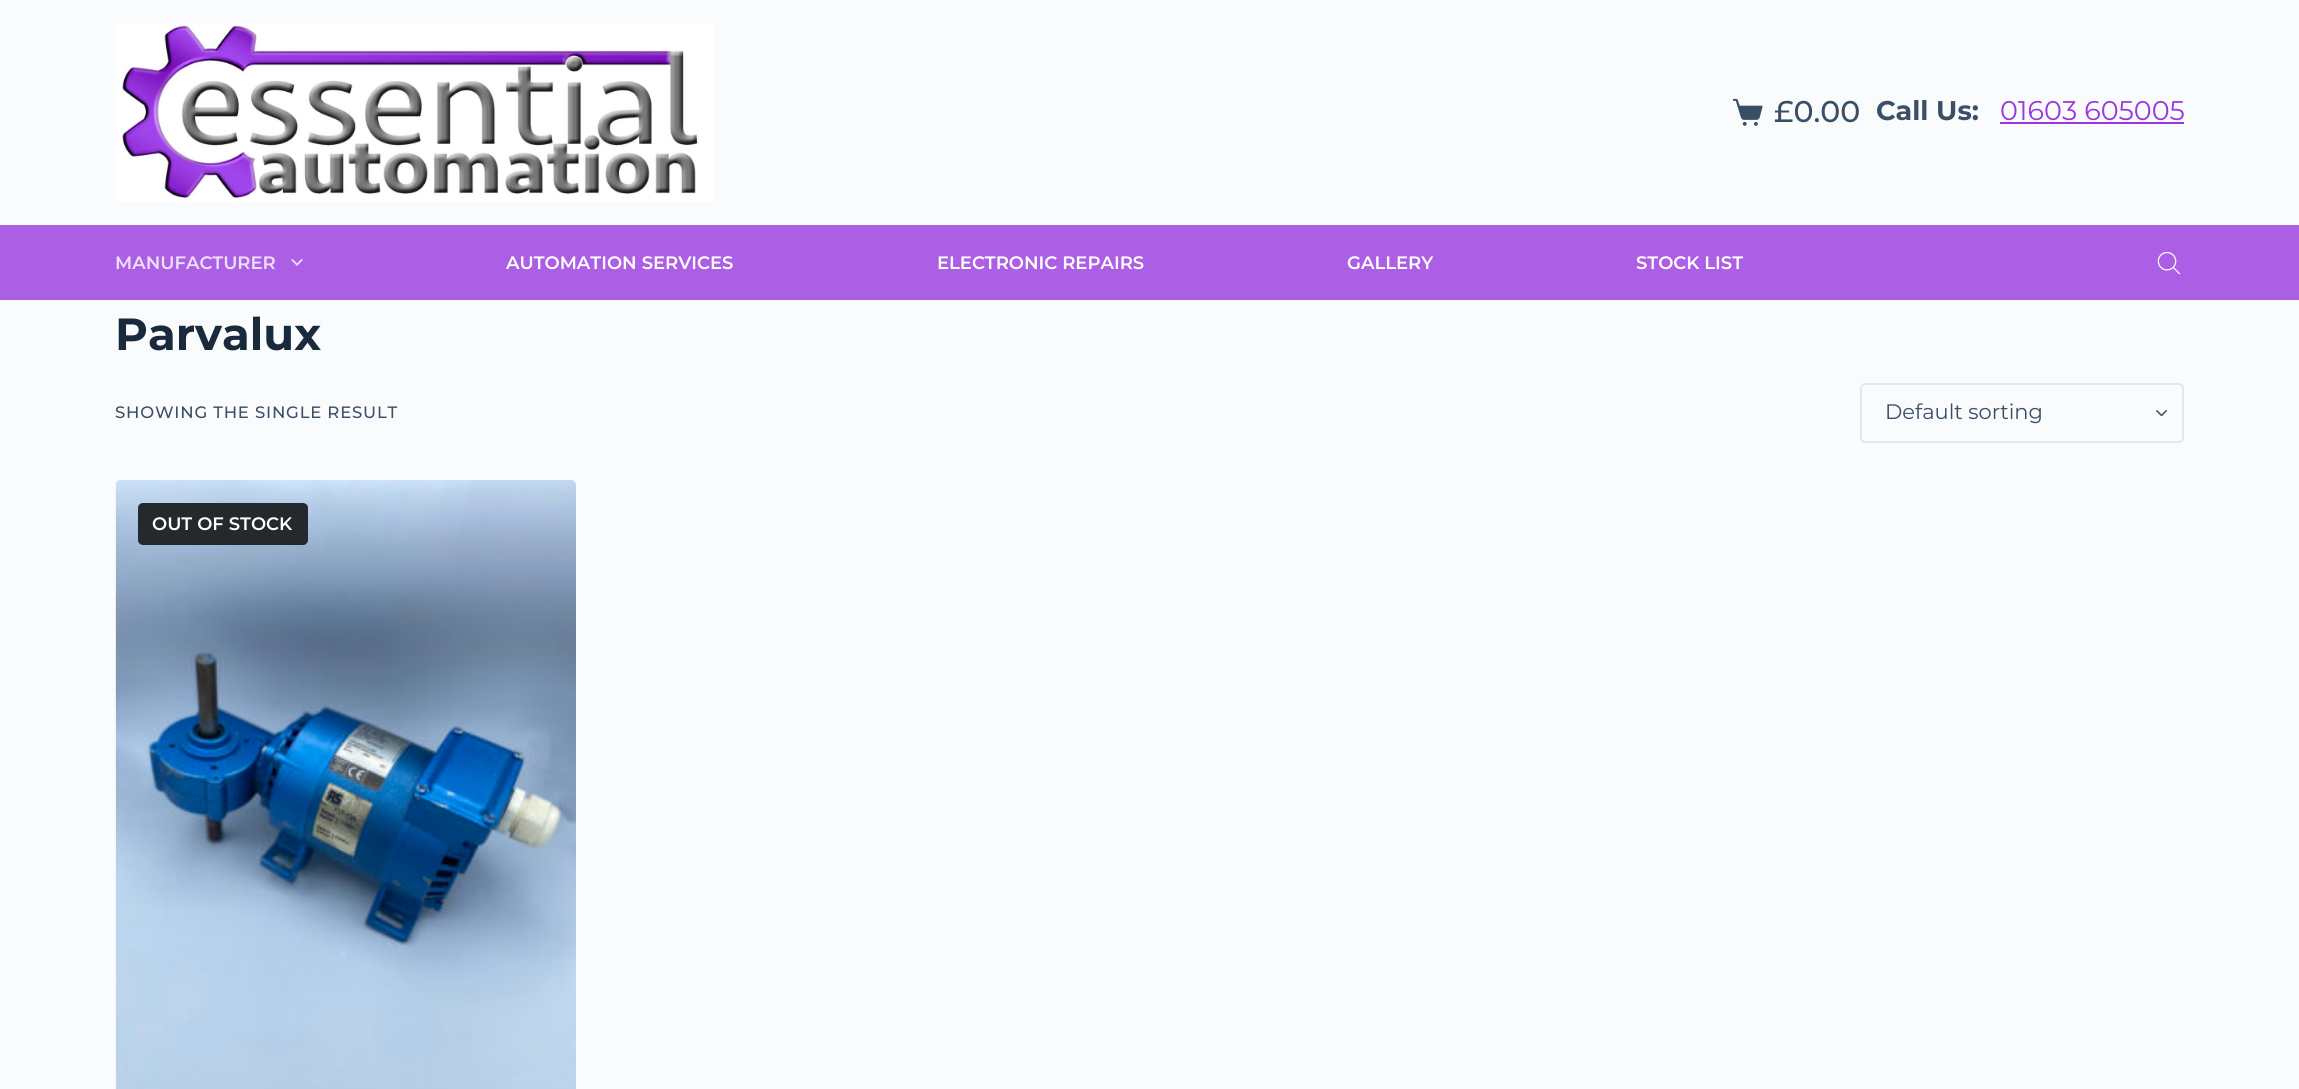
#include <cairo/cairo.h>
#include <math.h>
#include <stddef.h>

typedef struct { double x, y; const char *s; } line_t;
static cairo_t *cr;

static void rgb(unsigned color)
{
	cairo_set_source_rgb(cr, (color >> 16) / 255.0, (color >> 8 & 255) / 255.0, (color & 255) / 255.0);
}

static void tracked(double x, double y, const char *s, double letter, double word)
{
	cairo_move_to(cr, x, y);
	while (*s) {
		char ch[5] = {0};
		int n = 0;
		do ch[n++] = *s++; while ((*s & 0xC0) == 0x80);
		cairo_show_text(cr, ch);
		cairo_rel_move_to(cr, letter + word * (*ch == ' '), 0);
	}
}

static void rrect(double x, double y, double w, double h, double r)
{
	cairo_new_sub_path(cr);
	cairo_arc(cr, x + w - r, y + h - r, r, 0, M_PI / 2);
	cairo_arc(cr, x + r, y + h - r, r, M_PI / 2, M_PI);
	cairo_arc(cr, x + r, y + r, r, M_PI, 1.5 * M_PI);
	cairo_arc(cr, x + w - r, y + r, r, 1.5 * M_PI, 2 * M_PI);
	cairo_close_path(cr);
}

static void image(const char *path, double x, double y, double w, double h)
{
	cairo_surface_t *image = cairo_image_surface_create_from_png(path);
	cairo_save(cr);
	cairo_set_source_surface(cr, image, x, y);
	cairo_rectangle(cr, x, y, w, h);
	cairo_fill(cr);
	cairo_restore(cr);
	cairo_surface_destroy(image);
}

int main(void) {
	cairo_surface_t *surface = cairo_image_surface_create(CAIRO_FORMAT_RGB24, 2299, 1089);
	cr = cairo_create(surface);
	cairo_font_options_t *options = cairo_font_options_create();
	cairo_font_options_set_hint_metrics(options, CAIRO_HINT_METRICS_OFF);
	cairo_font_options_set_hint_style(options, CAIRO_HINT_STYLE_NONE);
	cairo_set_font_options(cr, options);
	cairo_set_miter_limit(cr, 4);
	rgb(0xfafbfc);
	cairo_paint(cr);
	image("img/1.png", 116, 23, 598, 179);
	image("img/2.png", 1733, 98, 30, 28);
	rgb(0x9837de);
	cairo_rectangle(cr, 2000, 122, 184, 2);
	cairo_fill(cr);
	rgb(0xac5ee4);
	cairo_rectangle(cr, 0, 225, 2299, 75);
	cairo_fill(cr);
	image("img/3.png", 291, 259, 12, 7);
	image("img/4.png", 2157, 252, 24, 23);
	image("img/5.png", 2156, 410, 12, 6);
	rrect(1861, 384, 322, 58, 4);
	rgb(0xe1e8ed);
	cairo_stroke(cr);
	image("img/6.png", 115, 480, 461, 609);
	rgb(0x24292e);
	rrect(138, 503, 170, 42, 5);
	cairo_fill(cr);
	cairo_select_font_face(cr, "Montserrat Medium", CAIRO_FONT_SLANT_NORMAL, CAIRO_FONT_WEIGHT_NORMAL);
	cairo_set_font_size(cr, 30);
	rgb(0x3a4f66);
	cairo_move_to(cr, 1774, 122);
	cairo_show_text(cr, "£0.00");
	cairo_select_font_face(cr, "Montserrat", CAIRO_FONT_SLANT_NORMAL, CAIRO_FONT_WEIGHT_BOLD);
	cairo_set_font_size(cr, 27);
	cairo_move_to(cr, 1876, 120);
	cairo_show_text(cr, "Call Us:");
	cairo_select_font_face(cr, "Montserrat", CAIRO_FONT_SLANT_NORMAL, CAIRO_FONT_WEIGHT_NORMAL);
	rgb(0x9837de);
	cairo_move_to(cr, 2000, 120);
	cairo_show_text(cr, "01603 605005");
	cairo_select_font_face(cr, "Montserrat SemiBold", CAIRO_FONT_SLANT_NORMAL, CAIRO_FONT_WEIGHT_NORMAL);
	cairo_set_font_size(cr, 18);
	rgb(0xeedffa);
	cairo_move_to(cr, 115, 269);
	cairo_show_text(cr, "MANUFACTURER");
	rgb(0xffffff);
	{
		static const line_t items[] = {
			{506, 269, "AUTOMATION SERVICES"},
			{937, 269, "ELECTRONIC REPAIRS"},
			{1347, 269, "GALLERY"},
			{1636, 269, "STOCK LIST"},
		};
		for (size_t i = 0; i < sizeof items / sizeof *items; i++) {
			cairo_move_to(cr, items[i].x, items[i].y);
			cairo_show_text(cr, items[i].s);
		}
	}
	cairo_select_font_face(cr, "Montserrat", CAIRO_FONT_SLANT_NORMAL, CAIRO_FONT_WEIGHT_BOLD);
	cairo_set_font_size(cr, 45);
	rgb(0x192a3d);
	cairo_move_to(cr, 115, 350);
	cairo_show_text(cr, "Parvalux");
	cairo_select_font_face(cr, "Montserrat Medium", CAIRO_FONT_SLANT_NORMAL, CAIRO_FONT_WEIGHT_NORMAL);
	cairo_set_font_size(cr, 16.5);
	rgb(0x3a4f66);
	tracked(115, 418, "SHOWING THE SINGLE RESULT", 0.8, 0);
	cairo_select_font_face(cr, "Montserrat", CAIRO_FONT_SLANT_NORMAL, CAIRO_FONT_WEIGHT_NORMAL);
	cairo_set_font_size(cr, 21);
	cairo_move_to(cr, 1885, 419);
	cairo_show_text(cr, "Default sorting");
	cairo_select_font_face(cr, "Montserrat SemiBold", CAIRO_FONT_SLANT_NORMAL, CAIRO_FONT_WEIGHT_NORMAL);
	cairo_set_font_size(cr, 18);
	rgb(0xffffff);
	cairo_move_to(cr, 152, 530);
	cairo_show_text(cr, "OUT OF STOCK");
	cairo_surface_write_to_png(surface, "page.png");
	cairo_font_options_destroy(options);
	cairo_destroy(cr);
	cairo_surface_destroy(surface);
	return 0;
}
